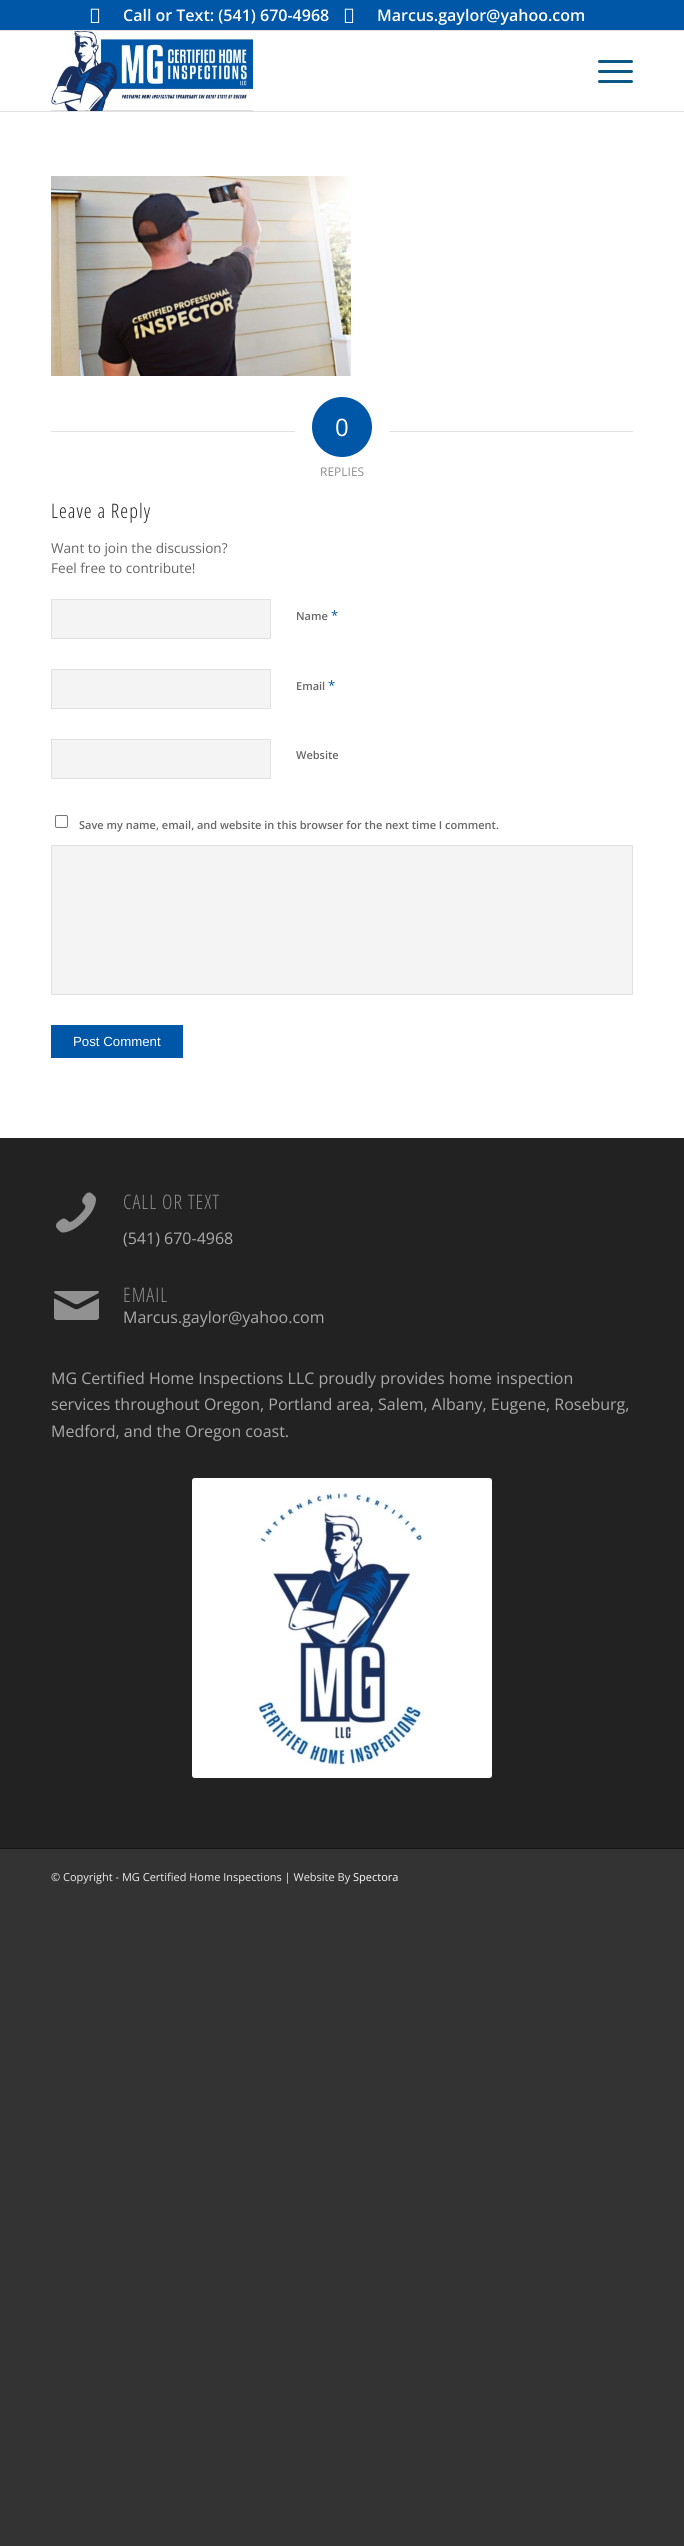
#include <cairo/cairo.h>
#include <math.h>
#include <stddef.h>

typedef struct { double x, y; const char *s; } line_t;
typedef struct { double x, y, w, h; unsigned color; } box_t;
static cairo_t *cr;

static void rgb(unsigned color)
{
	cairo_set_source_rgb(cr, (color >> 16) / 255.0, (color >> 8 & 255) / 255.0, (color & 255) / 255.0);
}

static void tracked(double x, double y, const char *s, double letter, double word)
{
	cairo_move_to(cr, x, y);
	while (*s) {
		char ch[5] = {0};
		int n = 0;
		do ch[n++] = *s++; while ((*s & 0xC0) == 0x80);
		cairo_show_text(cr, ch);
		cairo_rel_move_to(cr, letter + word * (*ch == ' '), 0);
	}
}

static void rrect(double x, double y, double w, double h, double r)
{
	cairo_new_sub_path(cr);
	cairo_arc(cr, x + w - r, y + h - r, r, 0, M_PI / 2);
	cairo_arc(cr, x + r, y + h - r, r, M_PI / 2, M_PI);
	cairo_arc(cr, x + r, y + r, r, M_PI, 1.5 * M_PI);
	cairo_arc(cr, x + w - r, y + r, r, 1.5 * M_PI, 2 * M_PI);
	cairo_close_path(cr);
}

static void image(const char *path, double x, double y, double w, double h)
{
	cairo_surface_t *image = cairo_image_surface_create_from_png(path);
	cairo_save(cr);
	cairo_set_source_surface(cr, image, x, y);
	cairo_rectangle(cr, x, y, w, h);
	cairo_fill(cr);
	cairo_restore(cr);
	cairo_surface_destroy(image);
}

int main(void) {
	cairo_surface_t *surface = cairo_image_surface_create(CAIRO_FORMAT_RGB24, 684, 2546);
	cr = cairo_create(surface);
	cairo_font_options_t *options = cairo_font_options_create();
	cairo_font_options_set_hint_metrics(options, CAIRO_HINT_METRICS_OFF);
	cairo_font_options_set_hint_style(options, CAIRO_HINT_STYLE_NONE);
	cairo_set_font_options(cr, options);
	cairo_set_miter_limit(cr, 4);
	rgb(0x333333);
	cairo_paint(cr);
	{
		static const box_t items[] = {
			{0, 31, 684, 80, 0xffffff},
			{0, 0, 684, 30, 0x0056a7},
			{0, 30, 684, 1, 0xe1e1e1},
		};
		for (size_t i = 0; i < sizeof items / sizeof *items; i++) {
			rgb(items[i].color);
			cairo_rectangle(cr, items[i].x, items[i].y, items[i].w, items[i].h);
			cairo_fill(cr);
		}
	}
	image("img/1.png", 90, 8, 10, 15);
	image("img/1.png", 344, 8, 10, 15);
	cairo_rectangle(cr, 0, 111, 684, 1);
	cairo_fill(cr);
	image("img/2.png", 51, 31, 202, 80);
	rgb(0x0b5884);
	rrect(598, 70, 35, 3, 1.5);
	cairo_fill(cr);
	rrect(598, 60, 35, 3, 1.5);
	cairo_fill(cr);
	rrect(598, 80, 35, 3, 1.5);
	cairo_fill(cr);
	rgb(0xffffff);
	cairo_rectangle(cr, 0, 112, 684, 1026);
	cairo_fill(cr);
	image("img/3.png", 51, 176, 300, 200);
	rgb(0xe1e1e1);
	cairo_rectangle(cr, 51, 431, 244, 1);
	cairo_fill(cr);
	rgb(0x0056a7);
	cairo_arc(cr, 342, 427, 30, 0, 2 * M_PI);
	cairo_fill(cr);
	rgb(0xe1e1e1);
	cairo_rectangle(cr, 389, 431, 244, 1);
	cairo_fill(cr);
	rgb(0xf4f4f4);
	cairo_rectangle(cr, 51.5, 599.5, 219, 39);
	cairo_fill_preserve(cr);
	rgb(0xe1e1e1);
	cairo_set_line_width(cr, 1);
	cairo_stroke(cr);
	rgb(0xf4f4f4);
	cairo_rectangle(cr, 51.5, 669.5, 219, 39);
	cairo_fill_preserve(cr);
	rgb(0xe1e1e1);
	cairo_stroke(cr);
	rgb(0xf4f4f4);
	cairo_rectangle(cr, 51.5, 739.5, 219, 39);
	cairo_fill_preserve(cr);
	rgb(0xe1e1e1);
	cairo_stroke(cr);
	rrect(55.5, 815.5, 12, 12, 1.5);
	rgb(0x767676);
	cairo_stroke(cr);
	rgb(0xf4f4f4);
	cairo_rectangle(cr, 51.5, 845.5, 581, 149);
	cairo_fill_preserve(cr);
	rgb(0xe1e1e1);
	cairo_stroke(cr);
	rgb(0x0056a7);
	cairo_rectangle(cr, 51, 1025, 132, 33);
	cairo_fill(cr);
	rgb(0x222222);
	cairo_rectangle(cr, 0, 1138, 684, 710);
	cairo_fill(cr);
	image("img/4.png", 56, 1192, 40, 41);
	image("img/5.png", 54, 1291, 45, 29);
	image("img/6.png", 192, 1478, 300, 300);
	rgb(0x161616);
	cairo_rectangle(cr, 0, 1848, 684, 1);
	cairo_fill(cr);
	cairo_select_font_face(cr, "Open Sans SemiBold", CAIRO_FONT_SLANT_NORMAL, CAIRO_FONT_WEIGHT_NORMAL);
	cairo_set_font_size(cr, 16);
	rgb(0xffffff);
	cairo_move_to(cr, 123, 21);
	cairo_show_text(cr, "Call or Text: (541) 670-4968");
	cairo_move_to(cr, 377, 21);
	cairo_show_text(cr, "Marcus.gaylor@yahoo.com");
	cairo_select_font_face(cr, "Open Sans", CAIRO_FONT_SLANT_NORMAL, CAIRO_FONT_WEIGHT_NORMAL);
	cairo_set_font_size(cr, 24);
	cairo_move_to(cr, 335, 436);
	cairo_show_text(cr, "0");
	cairo_set_font_size(cr, 12);
	rgb(0x8d8d8d);
	cairo_move_to(cr, 320, 476);
	cairo_show_text(cr, "REPLIES");
	cairo_select_font_face(cr, "Open Sans Condensed Light", CAIRO_FONT_SLANT_NORMAL, CAIRO_FONT_WEIGHT_NORMAL);
	cairo_set_font_size(cr, 20);
	rgb(0x222222);
	tracked(51, 518, "Leave a Reply", 1, 0);
	cairo_select_font_face(cr, "Open Sans", CAIRO_FONT_SLANT_NORMAL, CAIRO_FONT_WEIGHT_NORMAL);
	cairo_set_font_size(cr, 13.6);
	rgb(0x666666);
	cairo_move_to(cr, 51, 553);
	cairo_show_text(cr, "Want to join the discussion?");
	cairo_move_to(cr, 51, 573);
	cairo_show_text(cr, "Feel free to contribute!");
	cairo_select_font_face(cr, "Open Sans SemiBold", CAIRO_FONT_SLANT_NORMAL, CAIRO_FONT_WEIGHT_NORMAL);
	cairo_set_font_size(cr, 11);
	cairo_move_to(cr, 296, 620);
	cairo_show_text(cr, "Name");
	cairo_select_font_face(cr, "Open Sans", CAIRO_FONT_SLANT_NORMAL, CAIRO_FONT_WEIGHT_NORMAL);
	cairo_set_font_size(cr, 13);
	rgb(0x0056a7);
	cairo_move_to(cr, 331, 620);
	cairo_show_text(cr, "*");
	cairo_select_font_face(cr, "Open Sans SemiBold", CAIRO_FONT_SLANT_NORMAL, CAIRO_FONT_WEIGHT_NORMAL);
	cairo_set_font_size(cr, 11);
	rgb(0x666666);
	cairo_move_to(cr, 296, 690);
	cairo_show_text(cr, "Email");
	cairo_select_font_face(cr, "Open Sans", CAIRO_FONT_SLANT_NORMAL, CAIRO_FONT_WEIGHT_NORMAL);
	cairo_set_font_size(cr, 13);
	rgb(0x0056a7);
	cairo_move_to(cr, 328, 690);
	cairo_show_text(cr, "*");
	cairo_select_font_face(cr, "Open Sans SemiBold", CAIRO_FONT_SLANT_NORMAL, CAIRO_FONT_WEIGHT_NORMAL);
	cairo_set_font_size(cr, 11);
	rgb(0x666666);
	cairo_move_to(cr, 296, 759);
	cairo_show_text(cr, "Website");
	cairo_move_to(cr, 79, 829);
	cairo_show_text(cr, "Save my name, email, and website in this browser for the next time I comment.");
	cairo_select_font_face(cr, "Liberation Sans", CAIRO_FONT_SLANT_NORMAL, CAIRO_FONT_WEIGHT_NORMAL);
	cairo_set_font_size(cr, 13.25);
	rgb(0xffffff);
	cairo_move_to(cr, 73, 1046);
	cairo_show_text(cr, "Post Comment");
	cairo_select_font_face(cr, "Open Sans Condensed Light", CAIRO_FONT_SLANT_NORMAL, CAIRO_FONT_WEIGHT_NORMAL);
	cairo_set_font_size(cr, 20);
	rgb(0x8d8d8d);
	tracked(123, 1209, "CALL OR TEXT", 1, 0);
	cairo_select_font_face(cr, "Open Sans", CAIRO_FONT_SLANT_NORMAL, CAIRO_FONT_WEIGHT_NORMAL);
	cairo_set_font_size(cr, 16);
	rgb(0xaaaaaa);
	cairo_move_to(cr, 123, 1244);
	cairo_show_text(cr, "(541) 670-4968");
	cairo_select_font_face(cr, "Open Sans Condensed Light", CAIRO_FONT_SLANT_NORMAL, CAIRO_FONT_WEIGHT_NORMAL);
	cairo_set_font_size(cr, 20);
	rgb(0x8d8d8d);
	tracked(123, 1302, "EMAIL", 1, 0);
	cairo_select_font_face(cr, "Open Sans", CAIRO_FONT_SLANT_NORMAL, CAIRO_FONT_WEIGHT_NORMAL);
	cairo_set_font_size(cr, 16);
	rgb(0xaaaaaa);
	{
		static const line_t items[] = {
			{123, 1323, "Marcus.gaylor@yahoo.com"},
			{51, 1384, "MG Certified Home Inspections LLC proudly provides home inspection"},
			{51, 1410, "services throughout Oregon, Portland area, Salem, Albany, Eugene, Roseburg,"},
			{51, 1437, "Medford, and the Oregon coast."},
		};
		for (size_t i = 0; i < sizeof items / sizeof *items; i++) {
			cairo_move_to(cr, items[i].x, items[i].y);
			cairo_show_text(cr, items[i].s);
		}
	}
	cairo_set_font_size(cr, 11);
	rgb(0xeeeeee);
	cairo_move_to(cr, 51, 1881);
	cairo_show_text(cr, "© Copyright - MG Certified Home Inspections | Website By");
	rgb(0xffffff);
	cairo_move_to(cr, 353, 1881);
	cairo_show_text(cr, "Spectora");
	cairo_surface_write_to_png(surface, "page.png");
	cairo_font_options_destroy(options);
	cairo_destroy(cr);
	cairo_surface_destroy(surface);
	return 0;
}
